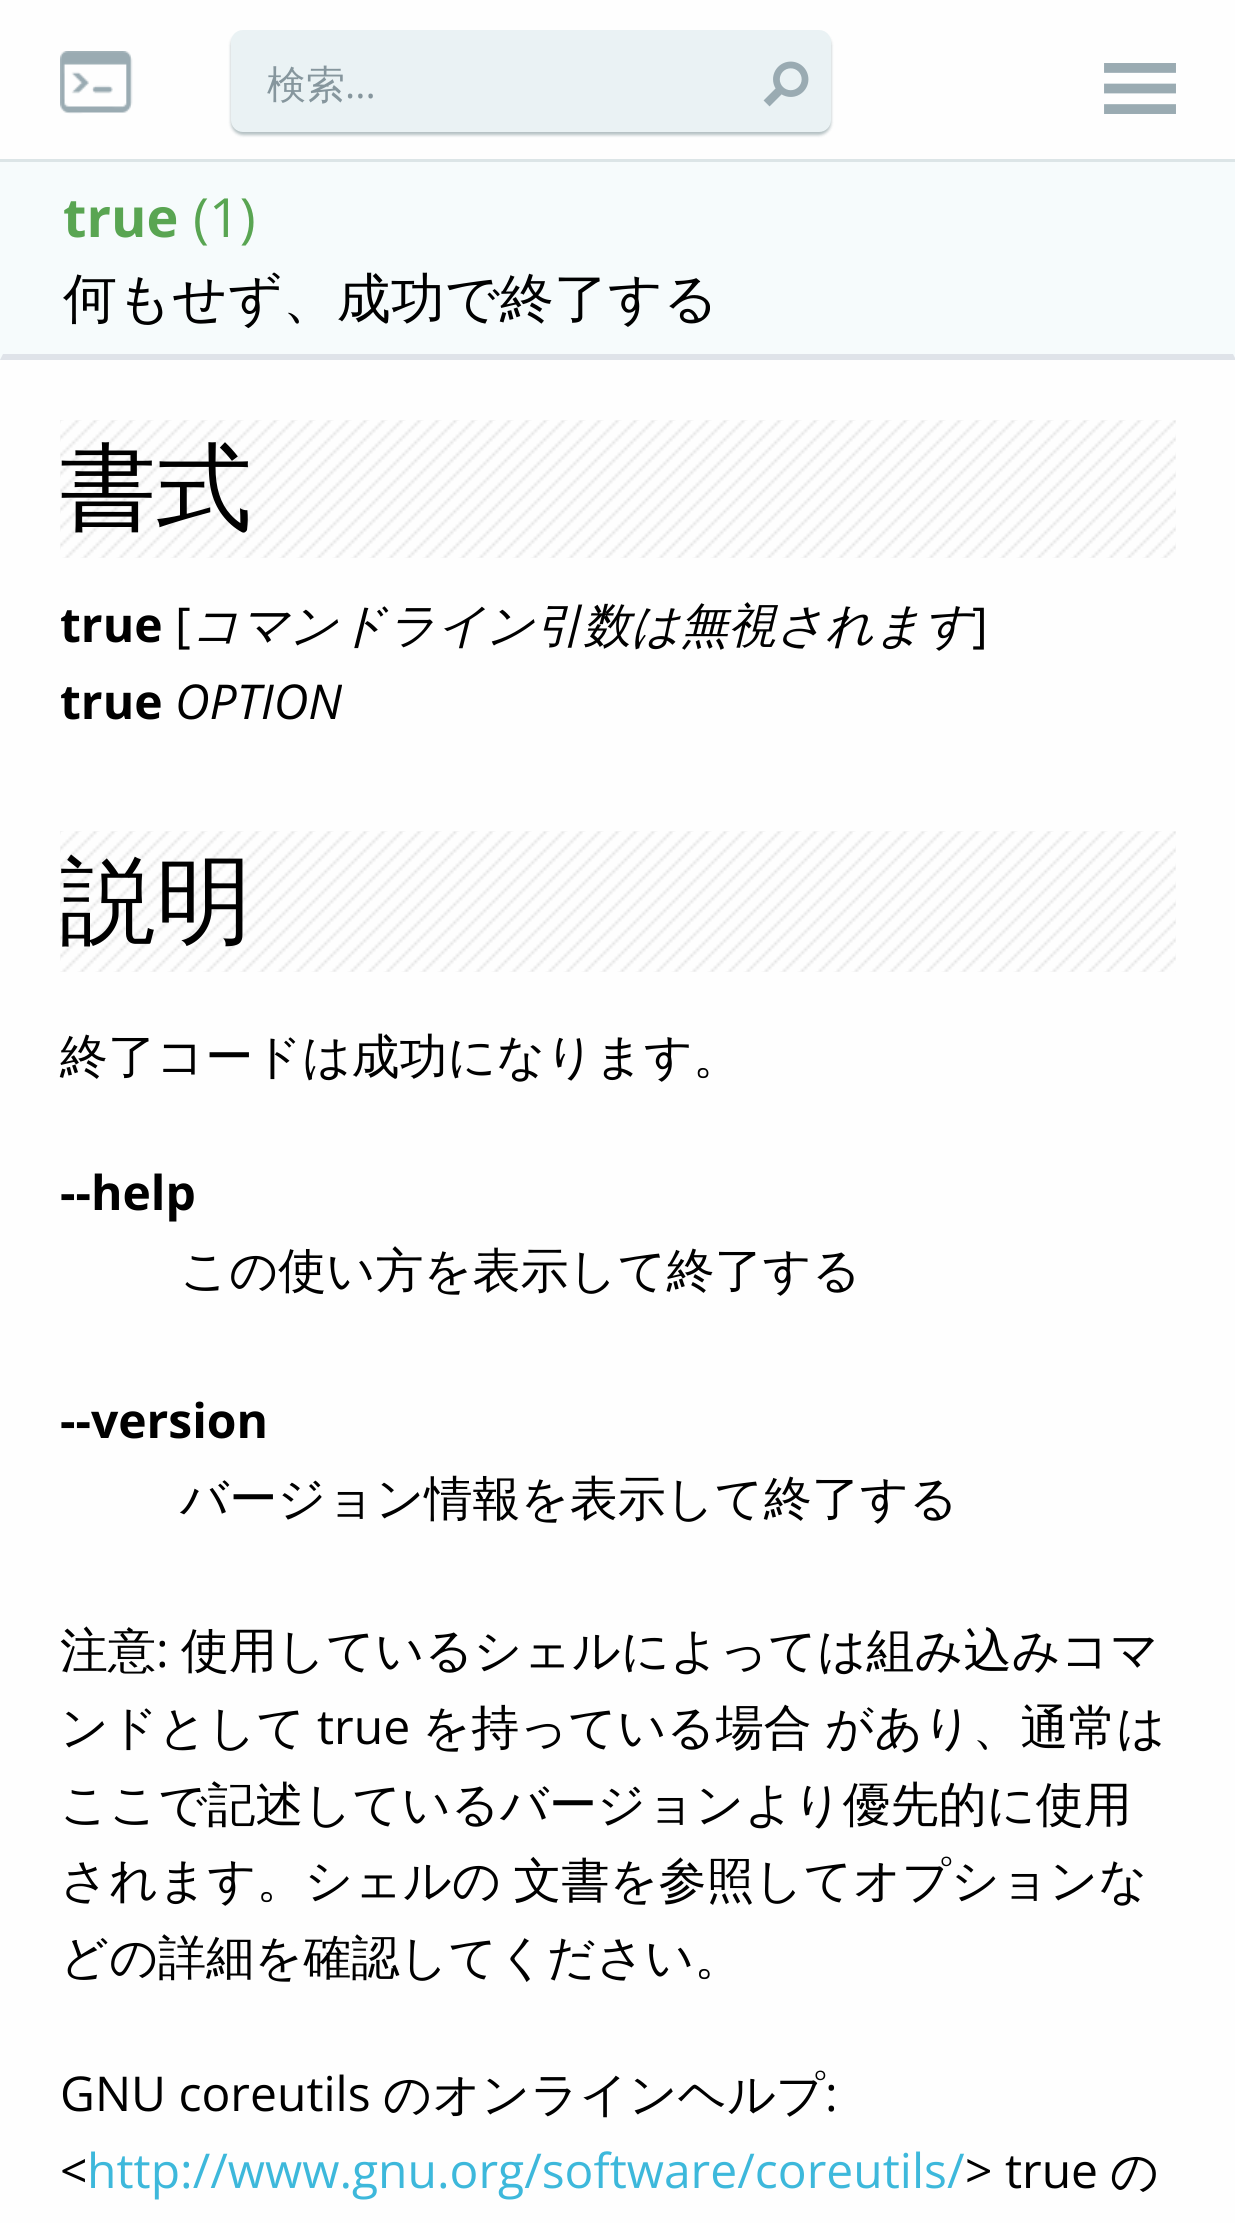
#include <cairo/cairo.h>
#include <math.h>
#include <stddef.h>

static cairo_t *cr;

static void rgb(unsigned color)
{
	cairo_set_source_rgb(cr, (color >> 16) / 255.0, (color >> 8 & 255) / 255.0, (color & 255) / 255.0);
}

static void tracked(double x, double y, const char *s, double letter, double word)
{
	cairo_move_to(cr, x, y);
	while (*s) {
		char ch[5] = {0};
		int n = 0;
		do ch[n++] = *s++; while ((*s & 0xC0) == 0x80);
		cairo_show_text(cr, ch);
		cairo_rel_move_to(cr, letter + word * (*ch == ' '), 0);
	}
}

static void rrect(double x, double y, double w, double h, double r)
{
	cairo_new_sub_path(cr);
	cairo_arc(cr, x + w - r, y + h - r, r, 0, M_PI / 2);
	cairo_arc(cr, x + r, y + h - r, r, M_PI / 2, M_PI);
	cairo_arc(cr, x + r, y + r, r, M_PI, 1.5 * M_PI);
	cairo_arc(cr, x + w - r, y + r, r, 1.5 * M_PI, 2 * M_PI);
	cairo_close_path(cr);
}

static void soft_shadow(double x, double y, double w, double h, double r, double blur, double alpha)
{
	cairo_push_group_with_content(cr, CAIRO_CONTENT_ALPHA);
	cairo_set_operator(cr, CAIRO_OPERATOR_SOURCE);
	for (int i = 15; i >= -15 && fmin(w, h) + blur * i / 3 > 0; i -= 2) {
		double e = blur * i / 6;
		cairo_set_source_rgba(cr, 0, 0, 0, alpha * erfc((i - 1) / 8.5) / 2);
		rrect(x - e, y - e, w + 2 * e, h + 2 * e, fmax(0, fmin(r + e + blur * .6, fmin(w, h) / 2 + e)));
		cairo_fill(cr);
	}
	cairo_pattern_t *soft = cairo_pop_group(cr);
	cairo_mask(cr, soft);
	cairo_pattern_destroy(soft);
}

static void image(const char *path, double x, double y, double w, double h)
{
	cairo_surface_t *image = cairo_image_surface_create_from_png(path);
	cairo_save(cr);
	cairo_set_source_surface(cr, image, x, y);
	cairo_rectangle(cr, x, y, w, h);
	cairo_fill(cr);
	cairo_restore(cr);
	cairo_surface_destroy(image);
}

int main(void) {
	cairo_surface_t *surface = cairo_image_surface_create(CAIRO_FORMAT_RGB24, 1235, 2223);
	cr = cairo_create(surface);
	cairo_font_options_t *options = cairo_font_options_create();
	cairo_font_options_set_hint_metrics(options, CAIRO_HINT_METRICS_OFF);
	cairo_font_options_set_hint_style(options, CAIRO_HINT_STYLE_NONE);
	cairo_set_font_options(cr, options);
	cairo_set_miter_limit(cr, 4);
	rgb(0xfefefe);
	cairo_paint(cr);
	rgb(0xdce5e7);
	cairo_rectangle(cr, 0, 159, 1235, 3);
	cairo_fill(cr);
	image("img/1.png", 60, 51, 73, 63);
	rgb(0x062f37);
	soft_shadow(231, 33, 600, 102, 12, 1.5, 0.3);
	rgb(0xeaf2f4);
	rrect(231, 30, 600, 102, 12);
	cairo_fill(cr);
	image("img/2.png", 763, 61, 46, 46);
	image("img/3.png", 1104, 63, 72, 51);
	rgb(0xf6fbfc);
	cairo_rectangle(cr, 0, 162, 1235, 198);
	cairo_fill(cr);
	rgb(0xdfe3e9);
	cairo_new_path(cr);
	cairo_move_to(cr, 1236, 360);
	cairo_line_to(cr, 0, 360);
	cairo_line_to(cr, 3, 354);
	cairo_line_to(cr, 1233, 354);
	cairo_close_path(cr);
	cairo_fill(cr);
	image("img/4.png", 60, 420, 1116, 138);
	image("img/5.png", 60, 831, 1116, 141);
	cairo_select_font_face(cr, "WenQuanYi Zen Hei Medium", CAIRO_FONT_SLANT_NORMAL, CAIRO_FONT_WEIGHT_NORMAL);
	cairo_set_font_size(cr, 39);
	rgb(0x86969d);
	cairo_move_to(cr, 267, 98);
	cairo_show_text(cr, "検索");
	cairo_select_font_face(cr, "Open Sans", CAIRO_FONT_SLANT_NORMAL, CAIRO_FONT_WEIGHT_NORMAL);
	cairo_move_to(cr, 345, 98);
	cairo_show_text(cr, "...");
	cairo_select_font_face(cr, "Open Sans", CAIRO_FONT_SLANT_NORMAL, CAIRO_FONT_WEIGHT_BOLD);
	cairo_set_font_size(cr, 54);
	rgb(0x59a552);
	cairo_move_to(cr, 63, 237);
	cairo_show_text(cr, "true");
	cairo_select_font_face(cr, "Open Sans", CAIRO_FONT_SLANT_NORMAL, CAIRO_FONT_WEIGHT_NORMAL);
	cairo_move_to(cr, 193, 237);
	cairo_show_text(cr, "(1)");
	cairo_select_font_face(cr, "WenQuanYi Zen Hei Medium", CAIRO_FONT_SLANT_NORMAL, CAIRO_FONT_WEIGHT_NORMAL);
	rgb(0x000000);
	cairo_move_to(cr, 63, 317);
	cairo_show_text(cr, "何もせず、成功で終了する");
	cairo_set_font_size(cr, 96);
	cairo_move_to(cr, 60, 521);
	cairo_show_text(cr, "書式");
	cairo_select_font_face(cr, "Open Sans", CAIRO_FONT_SLANT_NORMAL, CAIRO_FONT_WEIGHT_BOLD);
	cairo_set_font_size(cr, 48);
	cairo_move_to(cr, 60, 642);
	cairo_show_text(cr, "true");
	cairo_select_font_face(cr, "Open Sans", CAIRO_FONT_SLANT_NORMAL, CAIRO_FONT_WEIGHT_NORMAL);
	cairo_move_to(cr, 175, 642);
	cairo_show_text(cr, "[");
	cairo_select_font_face(cr, "WenQuanYi Zen Hei Medium", CAIRO_FONT_SLANT_ITALIC, CAIRO_FONT_WEIGHT_NORMAL);
	cairo_move_to(cr, 191, 642);
	cairo_show_text(cr, "コマンドライン引数は無視されます");
	cairo_select_font_face(cr, "Open Sans", CAIRO_FONT_SLANT_NORMAL, CAIRO_FONT_WEIGHT_NORMAL);
	cairo_move_to(cr, 972, 642);
	cairo_show_text(cr, "]");
	cairo_select_font_face(cr, "Open Sans", CAIRO_FONT_SLANT_NORMAL, CAIRO_FONT_WEIGHT_BOLD);
	cairo_move_to(cr, 60, 719);
	cairo_show_text(cr, "true");
	cairo_select_font_face(cr, "Open Sans", CAIRO_FONT_SLANT_ITALIC, CAIRO_FONT_WEIGHT_NORMAL);
	cairo_move_to(cr, 175, 719);
	cairo_show_text(cr, "OPTION");
	cairo_select_font_face(cr, "WenQuanYi Zen Hei Medium", CAIRO_FONT_SLANT_NORMAL, CAIRO_FONT_WEIGHT_NORMAL);
	cairo_set_font_size(cr, 96);
	cairo_move_to(cr, 60, 934);
	cairo_show_text(cr, "説明");
	cairo_set_font_size(cr, 48);
	cairo_move_to(cr, 60, 1073);
	cairo_show_text(cr, "終了コードは成功になります。");
	cairo_select_font_face(cr, "Open Sans", CAIRO_FONT_SLANT_NORMAL, CAIRO_FONT_WEIGHT_BOLD);
	cairo_move_to(cr, 60, 1210);
	cairo_show_text(cr, "--help");
	cairo_select_font_face(cr, "WenQuanYi Zen Hei Medium", CAIRO_FONT_SLANT_NORMAL, CAIRO_FONT_WEIGHT_NORMAL);
	cairo_move_to(cr, 180, 1287);
	cairo_show_text(cr, "この使い方を表示して終了する");
	cairo_select_font_face(cr, "Open Sans", CAIRO_FONT_SLANT_NORMAL, CAIRO_FONT_WEIGHT_BOLD);
	cairo_move_to(cr, 60, 1438);
	cairo_show_text(cr, "--version");
	cairo_select_font_face(cr, "WenQuanYi Zen Hei Medium", CAIRO_FONT_SLANT_NORMAL, CAIRO_FONT_WEIGHT_NORMAL);
	cairo_move_to(cr, 180, 1515);
	cairo_show_text(cr, "バージョン情報を表示して終了する");
	cairo_move_to(cr, 60, 1667);
	cairo_show_text(cr, "注意");
	cairo_select_font_face(cr, "Open Sans", CAIRO_FONT_SLANT_NORMAL, CAIRO_FONT_WEIGHT_NORMAL);
	cairo_move_to(cr, 156, 1667);
	cairo_show_text(cr, ":");
	cairo_select_font_face(cr, "WenQuanYi Zen Hei Medium", CAIRO_FONT_SLANT_NORMAL, CAIRO_FONT_WEIGHT_NORMAL);
	cairo_move_to(cr, 181, 1667);
	cairo_show_text(cr, "使用しているシェルによっては組み込みコマ");
	cairo_move_to(cr, 60, 1744);
	cairo_show_text(cr, "ンドとして");
	cairo_select_font_face(cr, "Open Sans", CAIRO_FONT_SLANT_NORMAL, CAIRO_FONT_WEIGHT_NORMAL);
	cairo_move_to(cr, 317, 1744);
	cairo_show_text(cr, "true");
	cairo_select_font_face(cr, "WenQuanYi Zen Hei Medium", CAIRO_FONT_SLANT_NORMAL, CAIRO_FONT_WEIGHT_NORMAL);
	tracked(422, 1744, "を持っている場合 があり、通常は", 0, -1);
	cairo_move_to(cr, 60, 1821);
	cairo_show_text(cr, "ここで記述しているバージョンより優先的に使用");
	tracked(60, 1897, "されます。シェルの 文書を参照してオプションな", 0, -2);
	cairo_move_to(cr, 60, 1974);
	cairo_show_text(cr, "どの詳細を確認してください。");
	cairo_select_font_face(cr, "Open Sans", CAIRO_FONT_SLANT_NORMAL, CAIRO_FONT_WEIGHT_NORMAL);
	cairo_move_to(cr, 60, 2111);
	cairo_show_text(cr, "GNU coreutils");
	cairo_select_font_face(cr, "WenQuanYi Zen Hei Medium", CAIRO_FONT_SLANT_NORMAL, CAIRO_FONT_WEIGHT_NORMAL);
	cairo_move_to(cr, 383, 2111);
	cairo_show_text(cr, "のオンラインヘルプ");
	cairo_select_font_face(cr, "Open Sans", CAIRO_FONT_SLANT_NORMAL, CAIRO_FONT_WEIGHT_NORMAL);
	cairo_move_to(cr, 825, 2111);
	cairo_show_text(cr, ":");
	cairo_move_to(cr, 60, 2188);
	cairo_show_text(cr, "<");
	rgb(0x3db8db);
	cairo_move_to(cr, 87, 2188);
	cairo_show_text(cr, "http://www.gnu.org/software/coreutils/");
	rgb(0x000000);
	cairo_move_to(cr, 965, 2188);
	cairo_show_text(cr, "> true");
	cairo_select_font_face(cr, "WenQuanYi Zen Hei Medium", CAIRO_FONT_SLANT_NORMAL, CAIRO_FONT_WEIGHT_NORMAL);
	cairo_move_to(cr, 1110, 2188);
	cairo_show_text(cr, "の");
	cairo_surface_write_to_png(surface, "page.png");
	cairo_font_options_destroy(options);
	cairo_destroy(cr);
	cairo_surface_destroy(surface);
	return 0;
}
